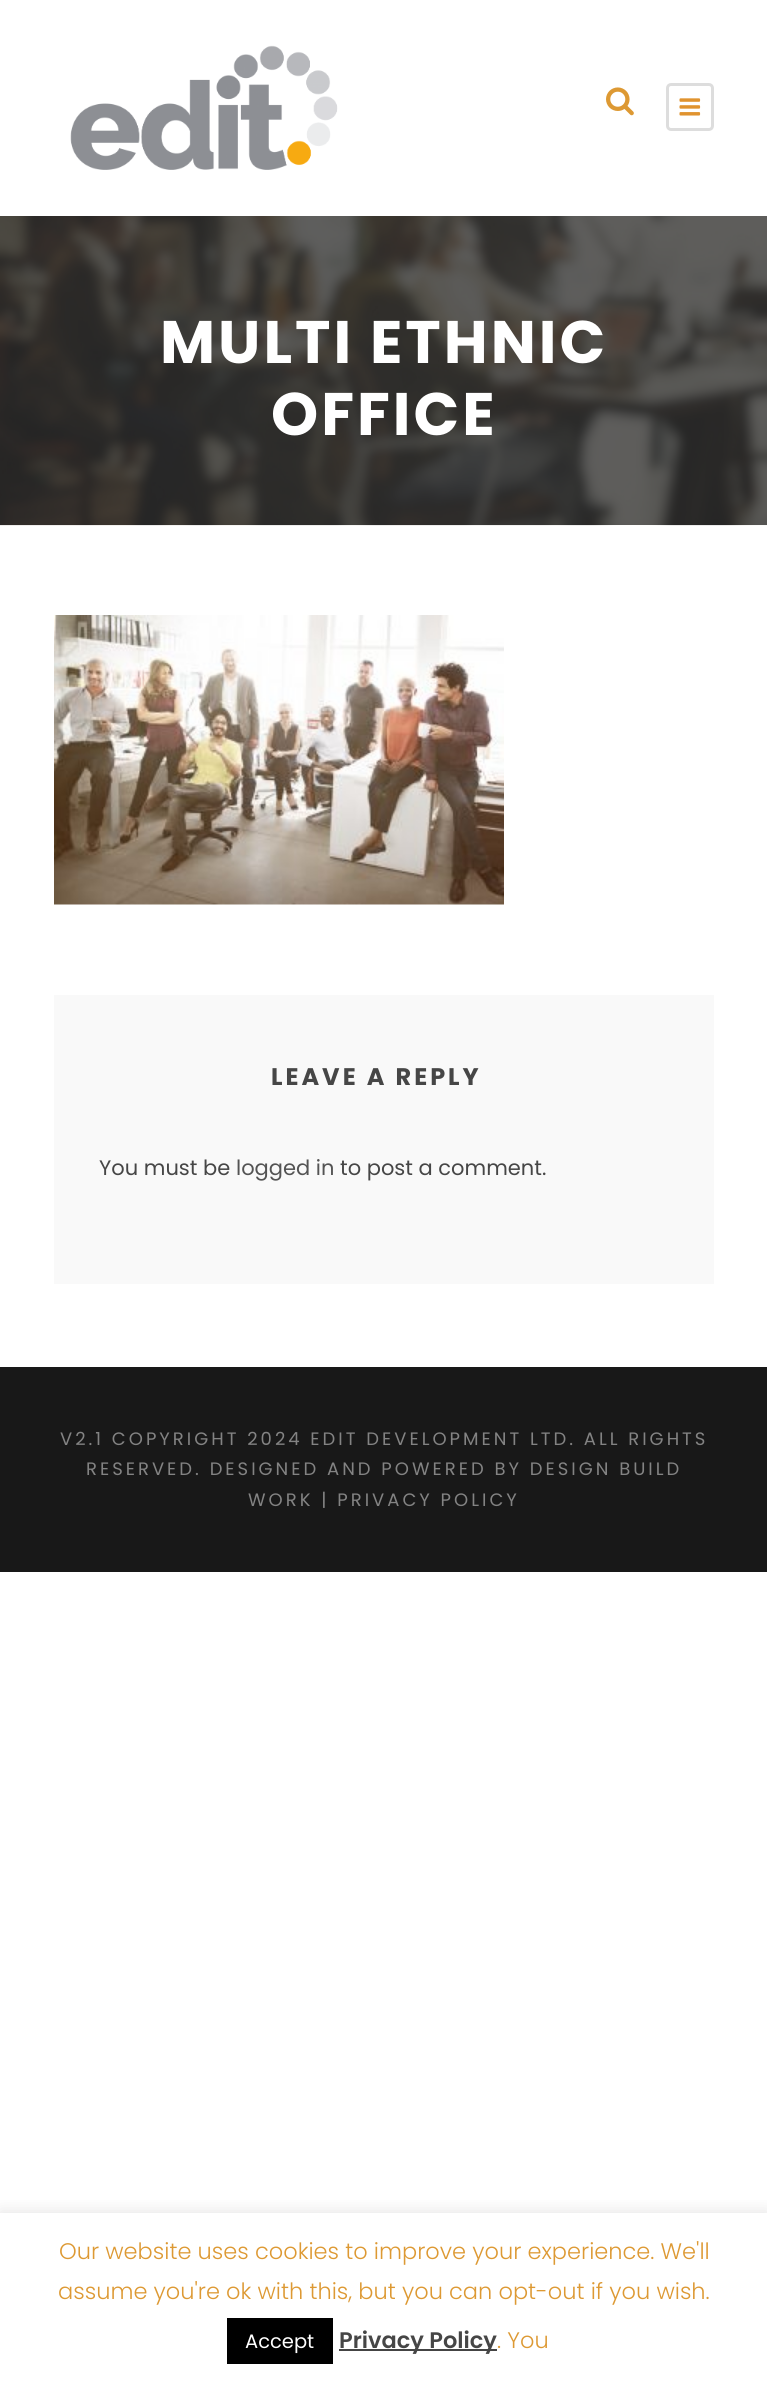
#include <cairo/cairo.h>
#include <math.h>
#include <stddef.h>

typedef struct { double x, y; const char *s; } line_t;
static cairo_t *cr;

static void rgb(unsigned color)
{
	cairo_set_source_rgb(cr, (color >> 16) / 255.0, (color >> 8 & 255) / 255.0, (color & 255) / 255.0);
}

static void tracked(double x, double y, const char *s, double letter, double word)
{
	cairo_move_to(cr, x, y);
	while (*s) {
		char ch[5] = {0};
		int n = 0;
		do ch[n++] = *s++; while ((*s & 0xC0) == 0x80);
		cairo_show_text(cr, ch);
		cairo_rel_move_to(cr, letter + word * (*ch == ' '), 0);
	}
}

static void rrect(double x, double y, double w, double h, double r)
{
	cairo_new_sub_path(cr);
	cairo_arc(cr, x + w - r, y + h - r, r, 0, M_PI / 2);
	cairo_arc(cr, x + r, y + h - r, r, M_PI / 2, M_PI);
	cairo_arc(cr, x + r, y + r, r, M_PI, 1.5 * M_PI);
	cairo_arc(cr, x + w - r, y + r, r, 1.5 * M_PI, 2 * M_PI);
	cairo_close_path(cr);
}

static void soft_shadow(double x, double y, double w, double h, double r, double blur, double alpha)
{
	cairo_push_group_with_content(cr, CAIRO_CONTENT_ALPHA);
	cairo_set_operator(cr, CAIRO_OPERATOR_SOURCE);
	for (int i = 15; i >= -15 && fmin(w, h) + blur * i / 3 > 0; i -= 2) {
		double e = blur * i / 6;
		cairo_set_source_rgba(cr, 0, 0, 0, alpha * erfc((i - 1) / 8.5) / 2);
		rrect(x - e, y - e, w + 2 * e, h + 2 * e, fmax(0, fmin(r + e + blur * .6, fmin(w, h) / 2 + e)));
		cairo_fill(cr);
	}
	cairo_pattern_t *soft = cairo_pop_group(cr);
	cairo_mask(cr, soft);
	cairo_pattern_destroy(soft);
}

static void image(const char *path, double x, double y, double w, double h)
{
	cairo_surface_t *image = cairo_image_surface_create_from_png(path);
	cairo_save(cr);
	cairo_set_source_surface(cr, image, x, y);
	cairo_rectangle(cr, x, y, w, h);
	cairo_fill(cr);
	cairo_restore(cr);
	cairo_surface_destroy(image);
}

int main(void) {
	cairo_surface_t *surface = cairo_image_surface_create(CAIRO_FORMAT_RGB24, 767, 2382);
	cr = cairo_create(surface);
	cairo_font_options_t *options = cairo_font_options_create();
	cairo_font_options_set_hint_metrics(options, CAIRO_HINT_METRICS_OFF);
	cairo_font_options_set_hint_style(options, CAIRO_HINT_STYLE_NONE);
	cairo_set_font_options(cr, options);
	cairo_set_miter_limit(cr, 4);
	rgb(0xffffff);
	cairo_paint(cr);
	image("img/1.png", 70, 45, 268, 125);
	image("img/2.png", 606, 87, 28, 29);
	rrect(667.5, 84.5, 45, 45, 3.5);
	rgb(0xdddddd);
	cairo_set_line_width(cr, 3);
	cairo_stroke(cr);
	image("img/3.png", 679, 98, 22, 18);
	image("img/4.png", 0, 216, 767, 310);
	image("img/5.png", 54, 615, 450, 290);
	rgb(0xf9f9f9);
	cairo_rectangle(cr, 54, 995, 660, 289);
	cairo_fill(cr);
	rgb(0x181818);
	cairo_rectangle(cr, 0, 1367, 767, 205);
	cairo_fill(cr);
	cairo_save(cr);
	cairo_rectangle(cr, 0, 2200, 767, 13);
	cairo_clip(cr);
	rgb(0xacabab);
	soft_shadow(0, 2211, 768, 170, 0, 7.5, 0.3);
	cairo_restore(cr);
	rgb(0x000000);
	cairo_rectangle(cr, 227, 2318, 106, 46);
	cairo_fill(cr);
	rgb(0x444444);
	cairo_rectangle(cr, 339, 2349, 158, 2);
	cairo_fill(cr);
	cairo_select_font_face(cr, "Poppins", CAIRO_FONT_SLANT_NORMAL, CAIRO_FONT_WEIGHT_BOLD);
	cairo_set_font_size(cr, 60);
	rgb(0xffffff);
	tracked(160, 363, "MULTI ETHNIC", 3, 0);
	tracked(271, 435, "OFFICE", 3, 0);
	cairo_set_font_size(cr, 24);
	rgb(0x464646);
	tracked(271, 1085, "LEAVE A REPLY", 3, 0);
	cairo_select_font_face(cr, "Poppins", CAIRO_FONT_SLANT_NORMAL, CAIRO_FONT_WEIGHT_NORMAL);
	cairo_set_font_size(cr, 21);
	cairo_move_to(cr, 99, 1175);
	cairo_show_text(cr, "You must be");
	rgb(0x545454);
	cairo_move_to(cr, 236, 1175);
	cairo_show_text(cr, "logged in");
	rgb(0x464646);
	cairo_move_to(cr, 340, 1175);
	cairo_show_text(cr, "to post a comment.");
	cairo_set_font_size(cr, 18);
	rgb(0x838383);
	{
		static const line_t items[] = {
			{60, 1445, "V2.1 COPYRIGHT 2024 EDIT DEVELOPMENT LTD. ALL RIGHTS"},
			{86, 1475, "RESERVED. DESIGNED AND POWERED BY DESIGN BUILD"},
			{248, 1506, "WORK | PRIVACY POLICY"},
		};
		for (size_t i = 0; i < sizeof items / sizeof *items; i++) {
			tracked(items[i].x, items[i].y, items[i].s, 3, 0);
		}
	}
	cairo_select_font_face(cr, "Poppins Light", CAIRO_FONT_SLANT_NORMAL, CAIRO_FONT_WEIGHT_NORMAL);
	cairo_set_font_size(cr, 22.5);
	rgb(0xdd9933);
	cairo_move_to(cr, 59, 2259);
	cairo_show_text(cr, "Our website uses cookies to improve your experience. We'll");
	cairo_move_to(cr, 58, 2299);
	cairo_show_text(cr, "assume you're ok with this, but you can opt-out if you wish.");
	cairo_select_font_face(cr, "Poppins", CAIRO_FONT_SLANT_NORMAL, CAIRO_FONT_WEIGHT_NORMAL);
	cairo_set_font_size(cr, 19.5);
	rgb(0xffffff);
	cairo_move_to(cr, 245, 2348);
	cairo_show_text(cr, "Accept");
	cairo_select_font_face(cr, "Poppins SemiBold", CAIRO_FONT_SLANT_NORMAL, CAIRO_FONT_WEIGHT_NORMAL);
	cairo_set_font_size(cr, 22.5);
	rgb(0x464646);
	cairo_move_to(cr, 339, 2348);
	cairo_show_text(cr, "Privacy Policy");
	cairo_select_font_face(cr, "Poppins Light", CAIRO_FONT_SLANT_NORMAL, CAIRO_FONT_WEIGHT_NORMAL);
	rgb(0xdd9933);
	cairo_move_to(cr, 497, 2348);
	cairo_show_text(cr, ". You");
	cairo_surface_write_to_png(surface, "page.png");
	cairo_font_options_destroy(options);
	cairo_destroy(cr);
	cairo_surface_destroy(surface);
	return 0;
}
